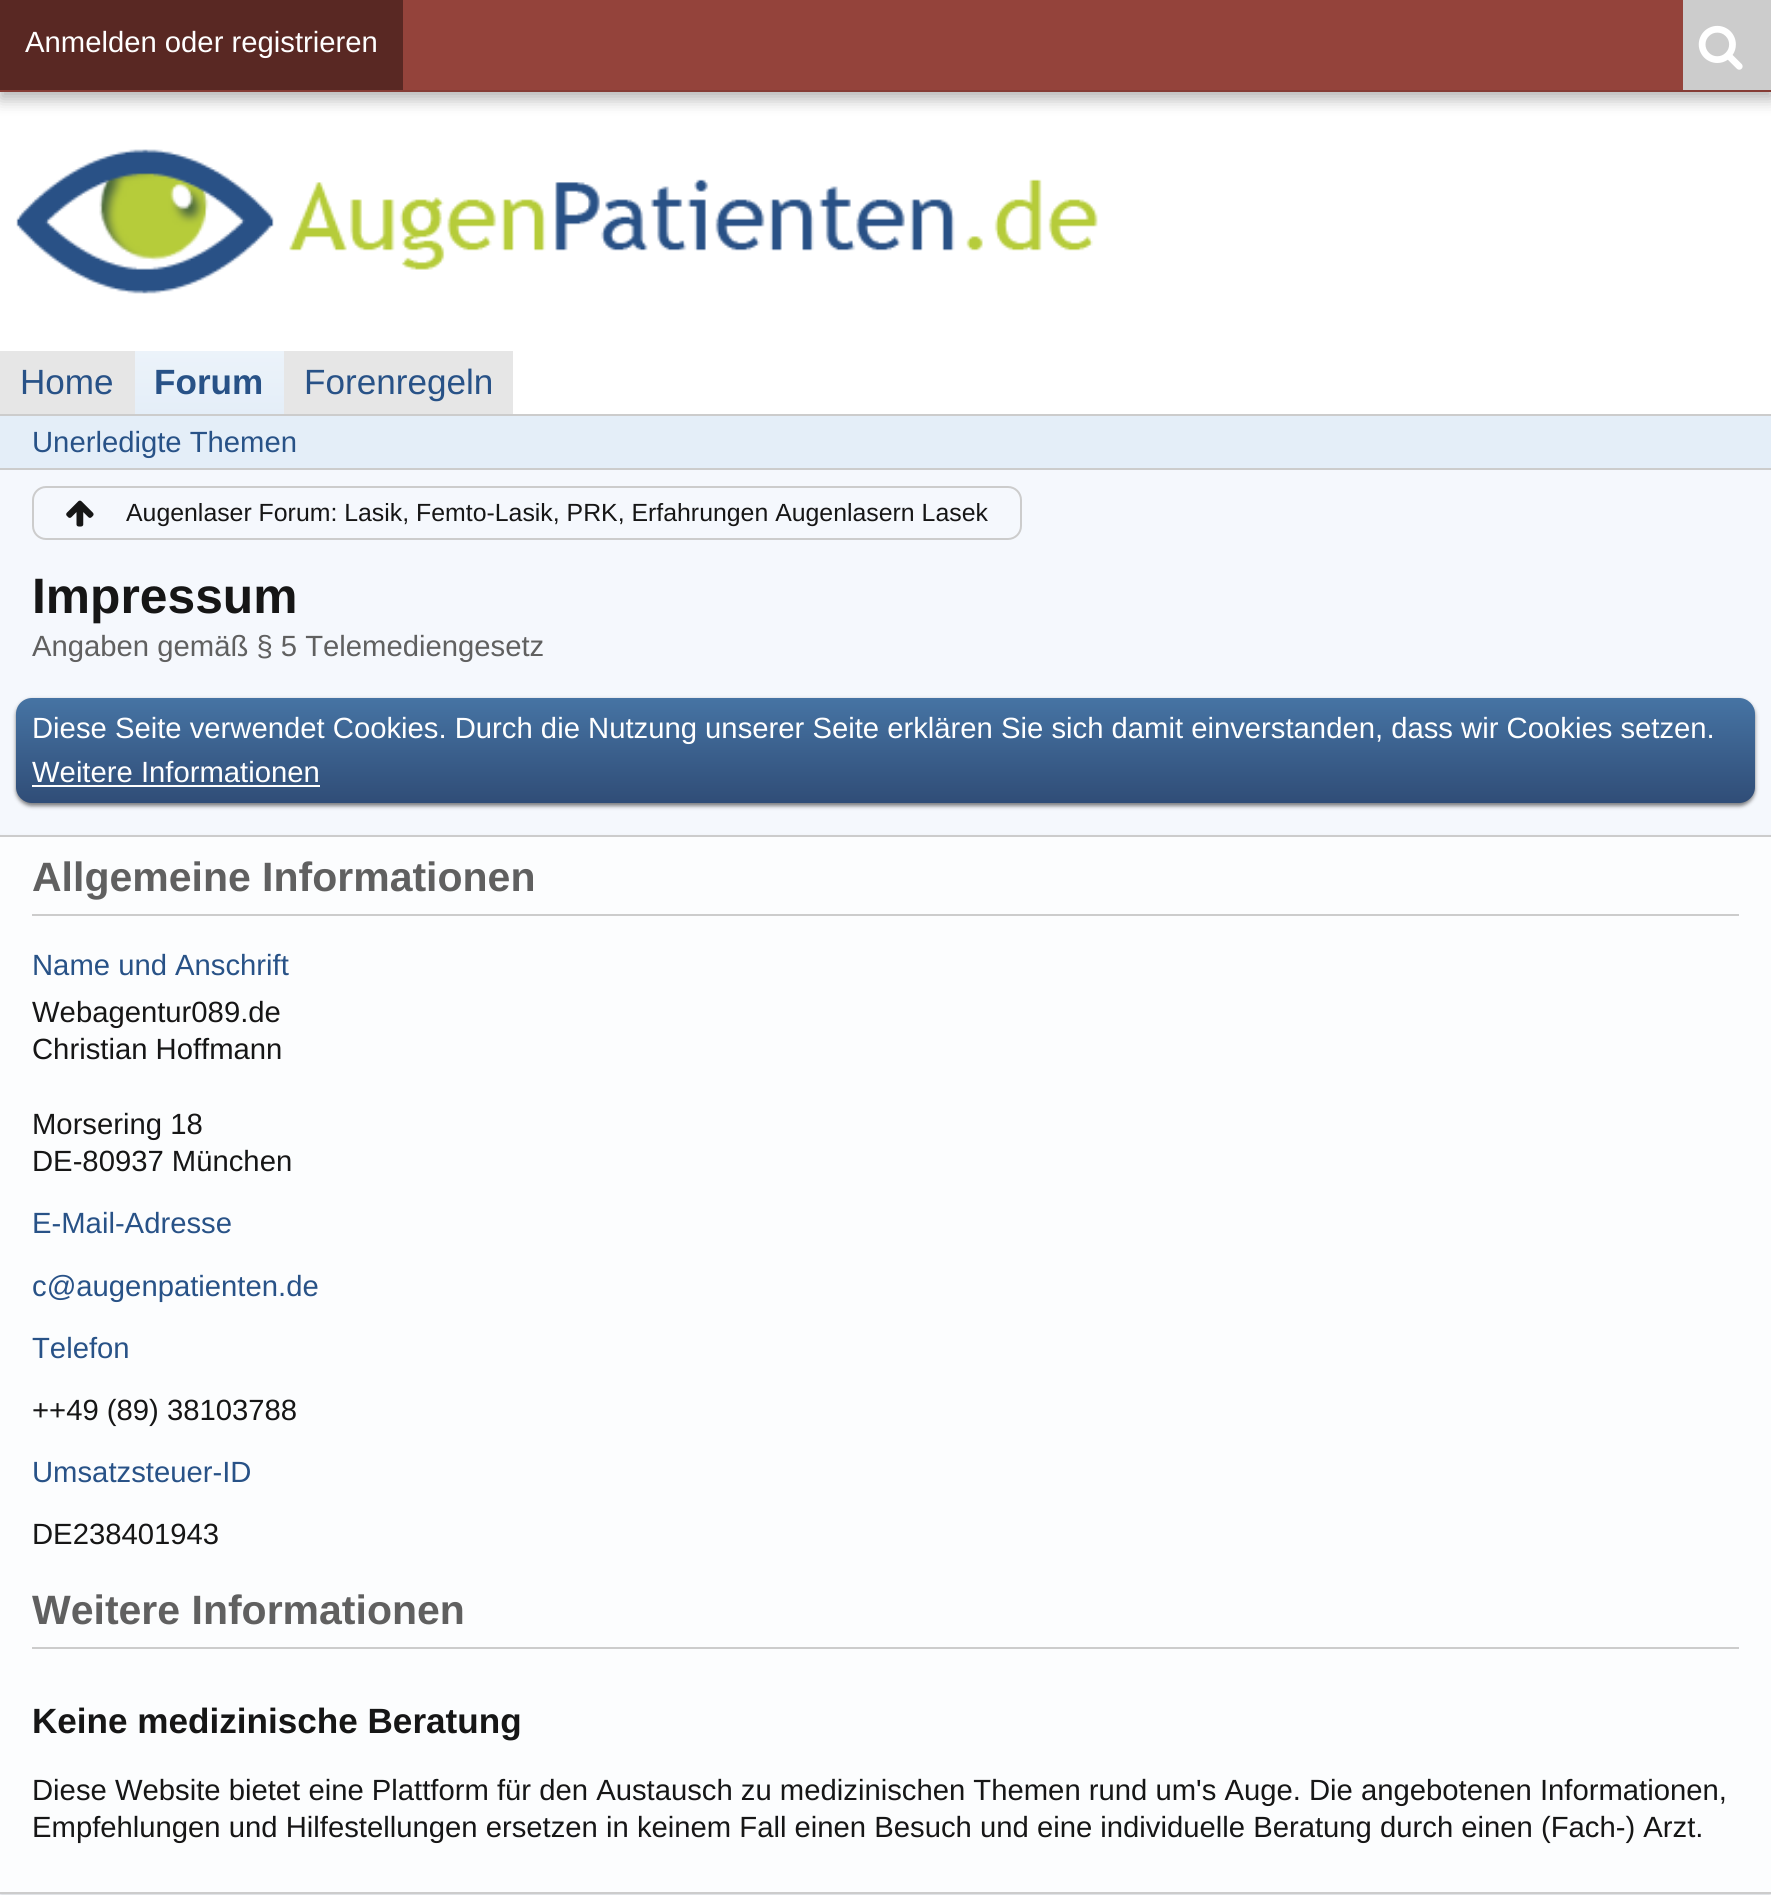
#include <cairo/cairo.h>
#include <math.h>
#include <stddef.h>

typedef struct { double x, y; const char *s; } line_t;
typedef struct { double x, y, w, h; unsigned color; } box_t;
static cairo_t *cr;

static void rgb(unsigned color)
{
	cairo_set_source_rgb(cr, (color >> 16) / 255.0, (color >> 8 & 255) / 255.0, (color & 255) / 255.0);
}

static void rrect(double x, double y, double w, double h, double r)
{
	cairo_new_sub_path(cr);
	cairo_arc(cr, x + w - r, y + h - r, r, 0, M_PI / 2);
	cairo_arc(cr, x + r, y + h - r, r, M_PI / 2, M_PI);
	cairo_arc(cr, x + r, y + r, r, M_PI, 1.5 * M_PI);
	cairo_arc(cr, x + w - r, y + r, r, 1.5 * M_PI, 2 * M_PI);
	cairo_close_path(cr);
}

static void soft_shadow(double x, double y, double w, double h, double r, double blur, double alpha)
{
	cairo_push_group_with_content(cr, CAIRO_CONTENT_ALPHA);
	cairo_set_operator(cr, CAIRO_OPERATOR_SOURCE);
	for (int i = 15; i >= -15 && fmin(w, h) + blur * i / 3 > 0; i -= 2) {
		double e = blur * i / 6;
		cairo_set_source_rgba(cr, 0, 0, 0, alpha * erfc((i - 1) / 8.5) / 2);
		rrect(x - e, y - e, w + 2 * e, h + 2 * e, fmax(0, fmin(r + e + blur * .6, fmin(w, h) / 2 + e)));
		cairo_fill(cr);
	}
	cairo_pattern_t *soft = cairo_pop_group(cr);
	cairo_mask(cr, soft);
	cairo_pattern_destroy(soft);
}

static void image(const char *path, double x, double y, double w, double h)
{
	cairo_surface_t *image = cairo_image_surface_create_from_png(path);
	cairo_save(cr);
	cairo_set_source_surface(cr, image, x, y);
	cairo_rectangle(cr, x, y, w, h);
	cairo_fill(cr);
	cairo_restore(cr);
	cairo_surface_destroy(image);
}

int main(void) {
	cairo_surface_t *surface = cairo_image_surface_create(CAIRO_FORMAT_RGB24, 1771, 1895);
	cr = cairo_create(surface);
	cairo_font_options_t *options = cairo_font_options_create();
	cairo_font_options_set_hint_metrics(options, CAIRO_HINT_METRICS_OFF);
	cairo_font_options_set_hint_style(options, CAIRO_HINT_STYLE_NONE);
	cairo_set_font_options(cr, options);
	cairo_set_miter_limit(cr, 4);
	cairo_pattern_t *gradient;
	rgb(0xffffff);
	cairo_paint(cr);
	rgb(0x000000);
	soft_shadow(0, 7, 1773, 92, 0, 8, 0.3);
	{
		static const box_t items[] = {
			{403, 0, 1280, 90, 0x94433b},
			{0, 90, 1771, 2, 0x853c35},
			{0, 0, 403, 90, 0x592823},
			{1683, 0, 88, 90, 0xcccccc},
		};
		for (size_t i = 0; i < sizeof items / sizeof *items; i++) {
			rgb(items[i].color);
			cairo_rectangle(cr, items[i].x, items[i].y, items[i].w, items[i].h);
			cairo_fill(cr);
		}
	}
	image("img/1.png", 1698, 25, 45, 45);
	image("img/2.png", 16, 149, 1082, 145);
	rgb(0xe6e6e6);
	cairo_rectangle(cr, 0, 351, 513, 63);
	cairo_fill(cr);
	gradient = cairo_pattern_create_linear(209, 351, 209, 416);
	cairo_pattern_add_color_stop_rgba(gradient, 0, 0.925, 0.953, 0.98, 1);
	cairo_pattern_add_color_stop_rgba(gradient, 1, 0.894, 0.933, 0.973, 1);
	cairo_set_source(cr, gradient);
	cairo_pattern_destroy(gradient);
	cairo_rectangle(cr, 135, 351, 149, 63);
	cairo_fill(cr);
	{
		static const box_t items[] = {
			{0, 416, 1771, 52, 0xe4eef8},
			{0, 414, 1771, 2, 0xcccccc},
			{0, 468, 1771, 2, 0xcccccc},
			{0, 470, 1771, 1425, 0xf5f8fd},
		};
		for (size_t i = 0; i < sizeof items / sizeof *items; i++) {
			rgb(items[i].color);
			cairo_rectangle(cr, items[i].x, items[i].y, items[i].w, items[i].h);
			cairo_fill(cr);
		}
	}
	rrect(33, 487, 988, 52, 13);
	rgb(0xcccccc);
	cairo_stroke(cr);
	image("img/3.png", 66, 500, 28, 27);
	rgb(0x000000);
	soft_shadow(16, 700, 1739, 106, 16, 2, 0.5);
	gradient = cairo_pattern_create_linear(885, 697, 885, 803);
	cairo_pattern_add_color_stop_rgba(gradient, 0, 0.275, 0.455, 0.643, 1);
	cairo_pattern_add_color_stop_rgba(gradient, 1, 0.188, 0.302, 0.467, 1);
	cairo_set_source(cr, gradient);
	cairo_pattern_destroy(gradient);
	rrect(16, 698, 1739, 105, 16);
	cairo_fill(cr);
	rgb(0xffffff);
	cairo_rectangle(cr, 32, 785, 288, 2);
	cairo_fill(cr);
	rgb(0x000000);
	soft_shadow(0, 837, 1771, 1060, 0, 2, 0.1);
	{
		static const box_t items[] = {
			{0, 837, 1771, 1055, 0xfcfdfe},
			{0, 835, 1771, 2, 0xcccccc},
			{0, 1892, 1771, 2, 0xcccccc},
			{32, 914, 1707, 2, 0xcccccc},
			{32, 1647, 1707, 2, 0xcccccc},
		};
		for (size_t i = 0; i < sizeof items / sizeof *items; i++) {
			rgb(items[i].color);
			cairo_rectangle(cr, items[i].x, items[i].y, items[i].w, items[i].h);
			cairo_fill(cr);
		}
	}
	cairo_select_font_face(cr, "Liberation Sans", CAIRO_FONT_SLANT_NORMAL, CAIRO_FONT_WEIGHT_NORMAL);
	cairo_set_font_size(cr, 29.25);
	rgb(0xffffff);
	cairo_move_to(cr, 25, 52);
	cairo_show_text(cr, "Anmelden oder registrieren");
	cairo_set_font_size(cr, 35.1);
	rgb(0x285287);
	cairo_move_to(cr, 20, 394);
	cairo_show_text(cr, "Home");
	cairo_select_font_face(cr, "Liberation Sans", CAIRO_FONT_SLANT_NORMAL, CAIRO_FONT_WEIGHT_BOLD);
	cairo_move_to(cr, 154, 394);
	cairo_show_text(cr, "Forum");
	cairo_select_font_face(cr, "Liberation Sans", CAIRO_FONT_SLANT_NORMAL, CAIRO_FONT_WEIGHT_NORMAL);
	cairo_move_to(cr, 304, 394);
	cairo_show_text(cr, "Forenregeln");
	cairo_set_font_size(cr, 29.25);
	cairo_move_to(cr, 32, 452);
	cairo_show_text(cr, "Unerledigte Themen");
	cairo_set_font_size(cr, 24.85);
	rgb(0x161616);
	cairo_move_to(cr, 126, 521);
	cairo_show_text(cr, "Augenlaser Forum: Lasik, Femto-Lasik, PRK, Erfahrungen Augenlasern Lasek");
	cairo_select_font_face(cr, "Liberation Sans", CAIRO_FONT_SLANT_NORMAL, CAIRO_FONT_WEIGHT_BOLD);
	cairo_set_font_size(cr, 49.75);
	cairo_move_to(cr, 32, 613);
	cairo_show_text(cr, "Impressum");
	cairo_select_font_face(cr, "Liberation Sans", CAIRO_FONT_SLANT_NORMAL, CAIRO_FONT_WEIGHT_NORMAL);
	cairo_set_font_size(cr, 29.25);
	rgb(0x606060);
	cairo_move_to(cr, 32, 656);
	cairo_show_text(cr, "Angaben gemäß § 5 Telemediengesetz");
	rgb(0xffffff);
	cairo_move_to(cr, 32, 738);
	cairo_show_text(cr, "Diese Seite verwendet Cookies. Durch die Nutzung unserer Seite erklären Sie sich damit einverstanden, dass wir Cookies setzen.");
	cairo_move_to(cr, 32, 782);
	cairo_show_text(cr, "Weitere Informationen");
	cairo_select_font_face(cr, "Liberation Sans", CAIRO_FONT_SLANT_NORMAL, CAIRO_FONT_WEIGHT_BOLD);
	cairo_set_font_size(cr, 41);
	rgb(0x606060);
	cairo_move_to(cr, 32, 891);
	cairo_show_text(cr, "Allgemeine Informationen");
	cairo_select_font_face(cr, "Liberation Sans", CAIRO_FONT_SLANT_NORMAL, CAIRO_FONT_WEIGHT_NORMAL);
	cairo_set_font_size(cr, 29.25);
	rgb(0x285287);
	cairo_move_to(cr, 32, 975);
	cairo_show_text(cr, "Name und Anschrift");
	rgb(0x161616);
	{
		static const line_t items[] = {
			{32, 1022, "Webagentur089.de"},
			{32, 1059, "Christian Hoffmann"},
			{32, 1134, "Morsering 18"},
			{32, 1171, "DE-80937 München"},
		};
		for (size_t i = 0; i < sizeof items / sizeof *items; i++) {
			cairo_move_to(cr, items[i].x, items[i].y);
			cairo_show_text(cr, items[i].s);
		}
	}
	rgb(0x285287);
	{
		static const line_t items[] = {
			{32, 1233, "E-Mail-Adresse"},
			{32, 1296, "c@augenpatienten.de"},
			{32, 1358, "Telefon"},
		};
		for (size_t i = 0; i < sizeof items / sizeof *items; i++) {
			cairo_move_to(cr, items[i].x, items[i].y);
			cairo_show_text(cr, items[i].s);
		}
	}
	rgb(0x161616);
	cairo_move_to(cr, 32, 1420);
	cairo_show_text(cr, "++49 (89) 38103788");
	rgb(0x285287);
	cairo_move_to(cr, 32, 1482);
	cairo_show_text(cr, "Umsatzsteuer-ID");
	rgb(0x161616);
	cairo_move_to(cr, 32, 1544);
	cairo_show_text(cr, "DE238401943");
	cairo_select_font_face(cr, "Liberation Sans", CAIRO_FONT_SLANT_NORMAL, CAIRO_FONT_WEIGHT_BOLD);
	cairo_set_font_size(cr, 41);
	rgb(0x606060);
	cairo_move_to(cr, 32, 1624);
	cairo_show_text(cr, "Weitere Informationen");
	cairo_set_font_size(cr, 35.1);
	rgb(0x161616);
	cairo_move_to(cr, 32, 1733);
	cairo_show_text(cr, "Keine medizinische Beratung");
	cairo_select_font_face(cr, "Liberation Sans", CAIRO_FONT_SLANT_NORMAL, CAIRO_FONT_WEIGHT_NORMAL);
	cairo_set_font_size(cr, 29.25);
	cairo_move_to(cr, 32, 1800);
	cairo_show_text(cr, "Diese Website bietet eine Plattform für den Austausch zu medizinischen Themen rund um's Auge. Die angebotenen Informationen,");
	cairo_move_to(cr, 32, 1837);
	cairo_show_text(cr, "Empfehlungen und Hilfestellungen ersetzen in keinem Fall einen Besuch und eine individuelle Beratung durch einen (Fach-) Arzt.");
	cairo_surface_write_to_png(surface, "page.png");
	cairo_font_options_destroy(options);
	cairo_destroy(cr);
	cairo_surface_destroy(surface);
	return 0;
}
